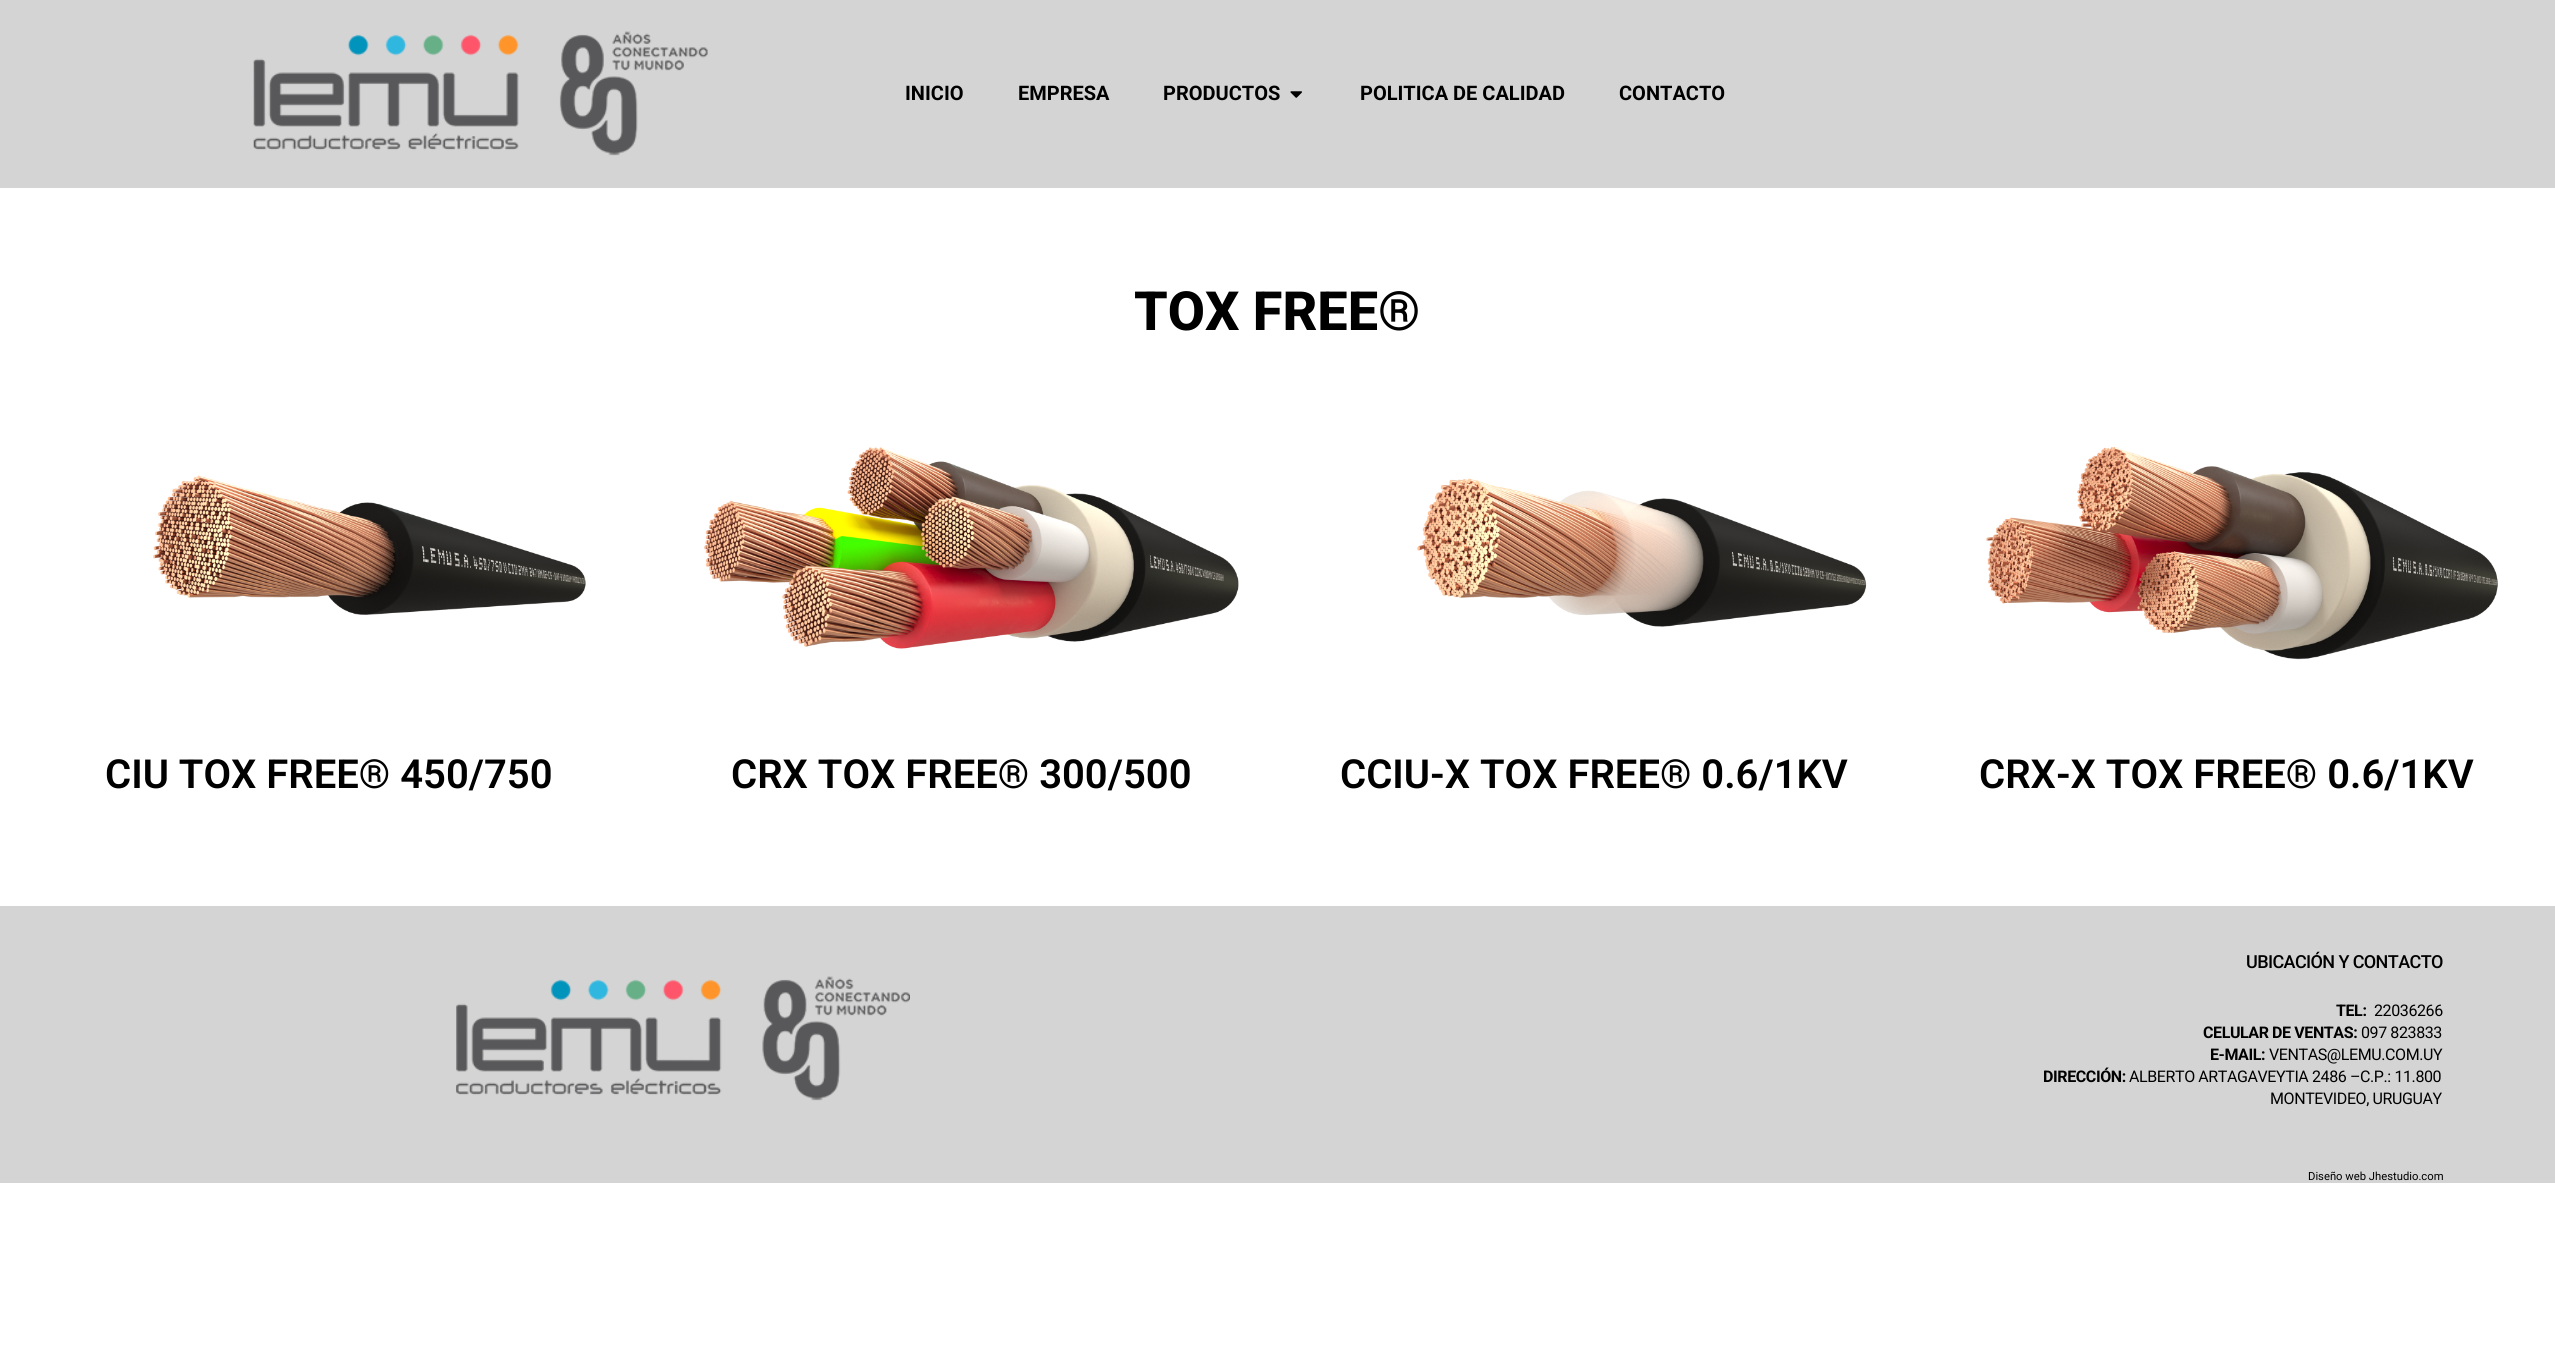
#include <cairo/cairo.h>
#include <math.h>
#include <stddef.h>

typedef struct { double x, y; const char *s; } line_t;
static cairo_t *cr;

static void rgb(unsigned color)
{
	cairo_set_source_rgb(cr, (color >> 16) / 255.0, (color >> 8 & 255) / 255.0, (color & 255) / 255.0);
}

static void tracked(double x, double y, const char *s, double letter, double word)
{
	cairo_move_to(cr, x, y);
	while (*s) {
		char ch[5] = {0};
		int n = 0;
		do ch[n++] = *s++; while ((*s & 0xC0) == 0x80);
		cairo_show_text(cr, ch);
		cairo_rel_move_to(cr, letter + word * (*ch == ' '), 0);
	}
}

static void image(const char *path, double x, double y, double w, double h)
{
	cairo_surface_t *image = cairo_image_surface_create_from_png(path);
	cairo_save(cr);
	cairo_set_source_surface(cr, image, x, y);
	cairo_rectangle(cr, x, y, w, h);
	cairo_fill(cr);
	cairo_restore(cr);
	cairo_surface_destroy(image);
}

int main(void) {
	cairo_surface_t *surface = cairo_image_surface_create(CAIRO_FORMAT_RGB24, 2555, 1356);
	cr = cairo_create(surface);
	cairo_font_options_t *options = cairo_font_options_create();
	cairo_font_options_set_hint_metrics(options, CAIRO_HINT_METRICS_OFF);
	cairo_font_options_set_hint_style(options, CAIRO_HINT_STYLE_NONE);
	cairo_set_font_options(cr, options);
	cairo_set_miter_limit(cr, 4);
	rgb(0xffffff);
	cairo_paint(cr);
	rgb(0xd4d4d4);
	cairo_rectangle(cr, 0, 0, 2555, 188);
	cairo_fill(cr);
	image("img/1.png", 253, 31, 455, 125);
	image("img/2.png", 1290, 91, 12, 7);
	image("img/3.png", 153, 475, 433, 140);
	image("img/4.png", 704, 447, 535, 202);
	image("img/5.png", 1417, 478, 450, 149);
	image("img/6.png", 1986, 447, 512, 213);
	cairo_rectangle(cr, 0, 906, 2555, 277);
	cairo_fill(cr);
	image("img/7.png", 456, 976, 454, 125);
	cairo_select_font_face(cr, "Roboto", CAIRO_FONT_SLANT_NORMAL, CAIRO_FONT_WEIGHT_BOLD);
	cairo_set_font_size(cr, 20);
	rgb(0x000000);
	{
		static const line_t items[] = {
			{905, 100, "INICIO"},
			{1018, 100, "EMPRESA"},
			{1163, 100, "PRODUCTOS"},
			{1360, 100, "POLITICA DE CALIDAD"},
			{1619, 100, "CONTACTO"},
		};
		for (size_t i = 0; i < sizeof items / sizeof *items; i++) {
			cairo_move_to(cr, items[i].x, items[i].y);
			cairo_show_text(cr, items[i].s);
		}
	}
	cairo_select_font_face(cr, "Roboto ExtraBold", CAIRO_FONT_SLANT_NORMAL, CAIRO_FONT_WEIGHT_NORMAL);
	cairo_set_font_size(cr, 54);
	cairo_move_to(cr, 1134, 330);
	cairo_show_text(cr, "TOX FREE®");
	cairo_select_font_face(cr, "Roboto SemiBold", CAIRO_FONT_SLANT_NORMAL, CAIRO_FONT_WEIGHT_NORMAL);
	cairo_set_font_size(cr, 40);
	{
		static const line_t items[] = {
			{105, 788, "CIU TOX FREE® 450/750"},
			{731, 788, "CRX TOX FREE® 300/500"},
			{1340, 788, "CCIU-X TOX FREE® 0.6/1KV"},
			{1979, 788, "CRX-X TOX FREE® 0.6/1KV"},
		};
		for (size_t i = 0; i < sizeof items / sizeof *items; i++) {
			cairo_move_to(cr, items[i].x, items[i].y);
			cairo_show_text(cr, items[i].s);
		}
	}
	cairo_select_font_face(cr, "Roboto Medium", CAIRO_FONT_SLANT_NORMAL, CAIRO_FONT_WEIGHT_NORMAL);
	cairo_set_font_size(cr, 18);
	tracked(2246, 968, "UBICACIÓN Y CONTACTO", -0.6, 0);
	cairo_select_font_face(cr, "Roboto", CAIRO_FONT_SLANT_NORMAL, CAIRO_FONT_WEIGHT_BOLD);
	cairo_set_font_size(cr, 16);
	tracked(2336, 1016, "TEL:", -0.4, 0);
	cairo_select_font_face(cr, "Roboto", CAIRO_FONT_SLANT_NORMAL, CAIRO_FONT_WEIGHT_NORMAL);
	tracked(2374, 1016, "22036266", -0.4, 0);
	cairo_select_font_face(cr, "Roboto", CAIRO_FONT_SLANT_NORMAL, CAIRO_FONT_WEIGHT_BOLD);
	tracked(2203, 1038, "CELULAR DE VENTAS:", -0.4, 0);
	cairo_select_font_face(cr, "Roboto", CAIRO_FONT_SLANT_NORMAL, CAIRO_FONT_WEIGHT_NORMAL);
	tracked(2361, 1038, "097 823833", -0.4, 0);
	cairo_select_font_face(cr, "Roboto", CAIRO_FONT_SLANT_NORMAL, CAIRO_FONT_WEIGHT_BOLD);
	tracked(2210, 1060, "E-MAIL:", -0.4, 0);
	cairo_select_font_face(cr, "Roboto", CAIRO_FONT_SLANT_NORMAL, CAIRO_FONT_WEIGHT_NORMAL);
	tracked(2269, 1060, "VENTAS@LEMU.COM.UY", -0.4, 0);
	cairo_select_font_face(cr, "Roboto", CAIRO_FONT_SLANT_NORMAL, CAIRO_FONT_WEIGHT_BOLD);
	tracked(2043, 1082, "DIRECCIÓN:", -0.4, 0);
	cairo_select_font_face(cr, "Roboto", CAIRO_FONT_SLANT_NORMAL, CAIRO_FONT_WEIGHT_NORMAL);
	tracked(2129, 1082, "ALBERTO ARTAGAVEYTIA 2486 –C.P.: 11.800", -0.4, 0);
	tracked(2270, 1104, "MONTEVIDEO, URUGUAY", -0.4, 0);
	cairo_set_font_size(cr, 11.25);
	cairo_move_to(cr, 2308, 1180);
	cairo_show_text(cr, "Diseño web Jhestudio.com");
	cairo_surface_write_to_png(surface, "page.png");
	cairo_font_options_destroy(options);
	cairo_destroy(cr);
	cairo_surface_destroy(surface);
	return 0;
}
